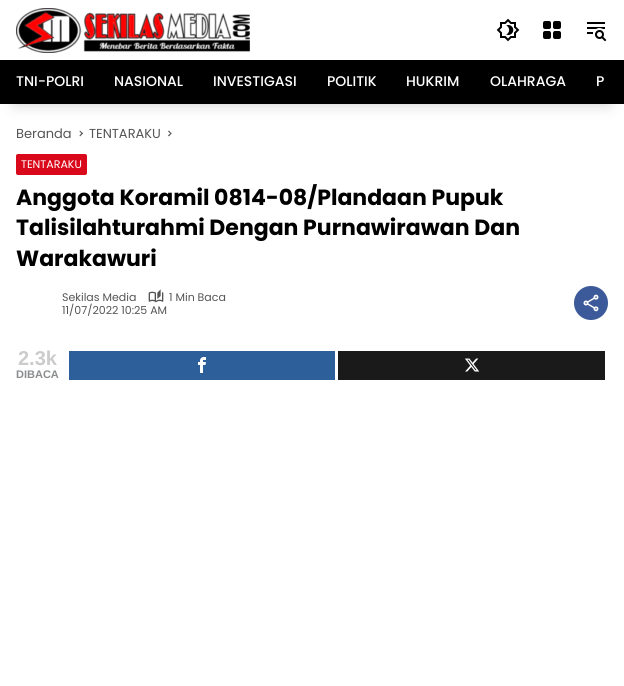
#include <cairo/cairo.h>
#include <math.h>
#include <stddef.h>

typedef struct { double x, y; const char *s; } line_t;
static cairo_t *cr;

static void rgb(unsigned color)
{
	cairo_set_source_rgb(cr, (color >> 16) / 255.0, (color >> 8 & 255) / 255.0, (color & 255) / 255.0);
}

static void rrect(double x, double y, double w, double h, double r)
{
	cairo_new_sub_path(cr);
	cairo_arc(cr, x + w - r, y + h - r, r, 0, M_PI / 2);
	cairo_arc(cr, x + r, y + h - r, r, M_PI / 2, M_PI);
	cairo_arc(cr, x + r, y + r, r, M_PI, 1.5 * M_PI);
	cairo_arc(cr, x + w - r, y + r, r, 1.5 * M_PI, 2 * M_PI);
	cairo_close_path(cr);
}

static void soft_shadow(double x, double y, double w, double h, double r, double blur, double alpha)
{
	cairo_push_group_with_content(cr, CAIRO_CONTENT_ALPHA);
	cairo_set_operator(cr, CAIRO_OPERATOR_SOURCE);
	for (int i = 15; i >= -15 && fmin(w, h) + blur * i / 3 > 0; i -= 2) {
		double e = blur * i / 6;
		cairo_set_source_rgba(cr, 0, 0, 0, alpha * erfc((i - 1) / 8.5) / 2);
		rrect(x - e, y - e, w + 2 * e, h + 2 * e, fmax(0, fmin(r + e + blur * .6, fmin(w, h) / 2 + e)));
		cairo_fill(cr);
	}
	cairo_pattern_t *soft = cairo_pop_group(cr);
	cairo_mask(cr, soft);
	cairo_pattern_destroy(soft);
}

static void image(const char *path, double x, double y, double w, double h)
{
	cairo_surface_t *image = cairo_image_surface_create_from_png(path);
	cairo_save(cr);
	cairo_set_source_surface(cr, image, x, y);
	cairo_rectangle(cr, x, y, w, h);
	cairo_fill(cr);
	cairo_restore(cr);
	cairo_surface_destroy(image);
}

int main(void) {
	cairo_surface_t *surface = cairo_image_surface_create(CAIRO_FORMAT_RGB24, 624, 686);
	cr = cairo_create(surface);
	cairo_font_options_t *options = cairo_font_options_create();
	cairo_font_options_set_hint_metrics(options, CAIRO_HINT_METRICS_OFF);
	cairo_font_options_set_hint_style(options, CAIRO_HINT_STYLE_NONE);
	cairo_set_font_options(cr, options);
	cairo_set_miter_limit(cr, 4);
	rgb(0xffffff);
	cairo_paint(cr);
	image("img/1.png", 16, 8, 234, 45);
	image("img/2.png", 496, 18, 24, 24);
	image("img/3.png", 543, 21, 18, 18);
	image("img/4.png", 587, 22, 20, 20);
	rgb(0x000000);
	soft_shadow(15, 90, 594, 14, 0, 7.5, 0.2);
	rgb(0x000000);
	cairo_rectangle(cr, 0, 60, 624, 44);
	cairo_fill(cr);
	rgb(0x555555);
	cairo_new_path(cr);
	cairo_move_to(cr, 79.5, 131.5);
	cairo_line_to(cr, 80, 130.5);
	cairo_line_to(cr, 83, 133.5);
	cairo_line_to(cr, 82, 134);
	cairo_close_path(cr);
	cairo_fill(cr);
	cairo_new_path(cr);
	cairo_move_to(cr, 79.5, 135.5);
	cairo_line_to(cr, 82, 132.5);
	cairo_line_to(cr, 83, 133.5);
	cairo_line_to(cr, 80, 136.5);
	cairo_close_path(cr);
	cairo_fill(cr);
	cairo_new_path(cr);
	cairo_move_to(cr, 168, 131.5);
	cairo_line_to(cr, 169, 130.5);
	cairo_line_to(cr, 171.5, 133.5);
	cairo_line_to(cr, 171, 134);
	cairo_close_path(cr);
	cairo_fill(cr);
	cairo_new_path(cr);
	cairo_move_to(cr, 168, 135.5);
	cairo_line_to(cr, 171, 132.5);
	cairo_line_to(cr, 171.5, 133.5);
	cairo_line_to(cr, 169, 136.5);
	cairo_close_path(cr);
	cairo_fill(cr);
	rgb(0xd9091b);
	rrect(16, 154, 71, 21, 2);
	cairo_fill(cr);
	image("img/5.png", 148, 289, 16, 14);
	rgb(0x3c5a99);
	cairo_arc(cr, 591, 303, 17, 0, 2 * M_PI);
	cairo_fill(cr);
	image("img/6.png", 583, 294, 16, 18);
	rgb(0x2d5f9a);
	cairo_rectangle(cr, 69, 351, 266, 29);
	cairo_fill(cr);
	image("img/7.png", 198, 357, 8, 16);
	rgb(0x1a1a1a);
	cairo_rectangle(cr, 338, 351, 267, 29);
	cairo_fill(cr);
	image("img/8.png", 465, 358, 15, 14);
	cairo_select_font_face(cr, "Poppins Medium", CAIRO_FONT_SLANT_NORMAL, CAIRO_FONT_WEIGHT_NORMAL);
	cairo_set_font_size(cr, 14);
	rgb(0xffffff);
	{
		static const line_t items[] = {
			{16, 86, "TNI-POLRI"},
			{114, 86, "NASIONAL"},
			{213, 86, "INVESTIGASI"},
			{327, 86, "POLITIK"},
			{406, 86, "HUKRIM"},
			{490, 86, "OLAHRAGA"},
			{596, 86, "P"},
		};
		for (size_t i = 0; i < sizeof items / sizeof *items; i++) {
			cairo_move_to(cr, items[i].x, items[i].y);
			cairo_show_text(cr, items[i].s);
		}
	}
	cairo_select_font_face(cr, "Poppins", CAIRO_FONT_SLANT_NORMAL, CAIRO_FONT_WEIGHT_NORMAL);
	cairo_set_font_size(cr, 13);
	rgb(0x555555);
	cairo_move_to(cr, 16, 138);
	cairo_show_text(cr, "Beranda");
	cairo_move_to(cr, 89, 138);
	cairo_show_text(cr, "TENTARAKU");
	cairo_set_font_size(cr, 11);
	rgb(0xffffff);
	cairo_move_to(cr, 21, 168);
	cairo_show_text(cr, "TENTARAKU");
	cairo_select_font_face(cr, "Poppins", CAIRO_FONT_SLANT_NORMAL, CAIRO_FONT_WEIGHT_BOLD);
	cairo_set_font_size(cr, 22);
	rgb(0x000000);
	{
		static const line_t items[] = {
			{16, 205, "Anggota Koramil 0814-08/Plandaan Pupuk"},
			{16, 235, "Talisilahturahmi Dengan Purnawirawan Dan"},
			{16, 266, "Warakawuri"},
		};
		for (size_t i = 0; i < sizeof items / sizeof *items; i++) {
			cairo_move_to(cr, items[i].x, items[i].y);
			cairo_show_text(cr, items[i].s);
		}
	}
	cairo_select_font_face(cr, "Poppins", CAIRO_FONT_SLANT_NORMAL, CAIRO_FONT_WEIGHT_NORMAL);
	cairo_set_font_size(cr, 11);
	rgb(0x555555);
	{
		static const line_t items[] = {
			{62, 301, "Sekilas Media"},
			{169, 301, "1 Min Baca"},
			{62, 314, "11/07/2022 10:25 AM"},
		};
		for (size_t i = 0; i < sizeof items / sizeof *items; i++) {
			cairo_move_to(cr, items[i].x, items[i].y);
			cairo_show_text(cr, items[i].s);
		}
	}
	cairo_select_font_face(cr, "Liberation Sans", CAIRO_FONT_SLANT_NORMAL, CAIRO_FONT_WEIGHT_BOLD);
	cairo_set_font_size(cr, 20);
	rgb(0xcccccc);
	cairo_move_to(cr, 18, 365);
	cairo_show_text(cr, "2.3k");
	cairo_set_font_size(cr, 11);
	rgb(0x8a8c8e);
	cairo_move_to(cr, 16, 378);
	cairo_show_text(cr, "DIBACA");
	cairo_surface_write_to_png(surface, "page.png");
	cairo_font_options_destroy(options);
	cairo_destroy(cr);
	cairo_surface_destroy(surface);
	return 0;
}
